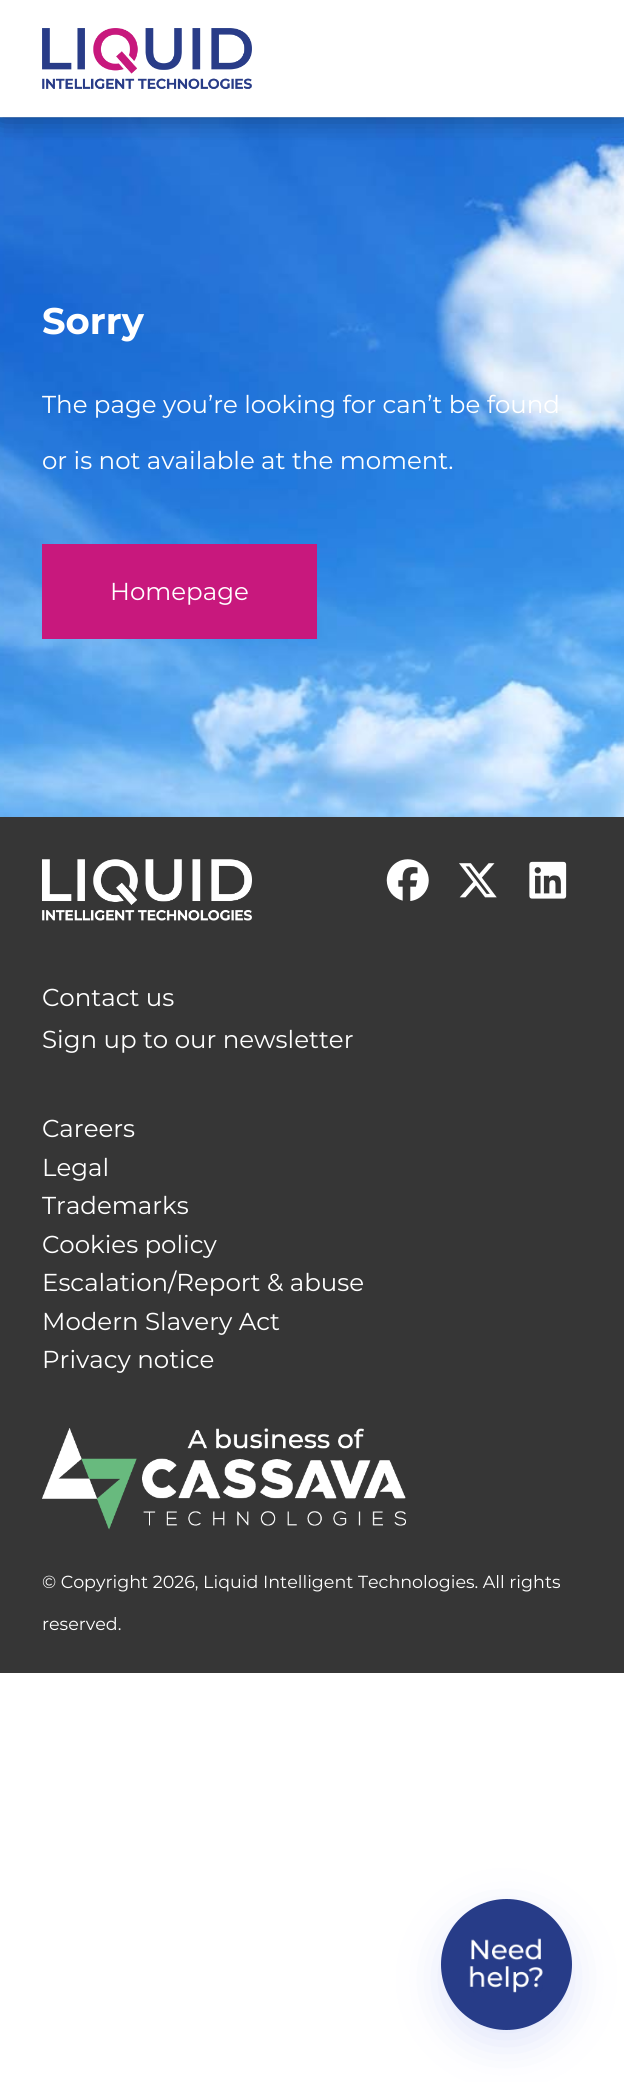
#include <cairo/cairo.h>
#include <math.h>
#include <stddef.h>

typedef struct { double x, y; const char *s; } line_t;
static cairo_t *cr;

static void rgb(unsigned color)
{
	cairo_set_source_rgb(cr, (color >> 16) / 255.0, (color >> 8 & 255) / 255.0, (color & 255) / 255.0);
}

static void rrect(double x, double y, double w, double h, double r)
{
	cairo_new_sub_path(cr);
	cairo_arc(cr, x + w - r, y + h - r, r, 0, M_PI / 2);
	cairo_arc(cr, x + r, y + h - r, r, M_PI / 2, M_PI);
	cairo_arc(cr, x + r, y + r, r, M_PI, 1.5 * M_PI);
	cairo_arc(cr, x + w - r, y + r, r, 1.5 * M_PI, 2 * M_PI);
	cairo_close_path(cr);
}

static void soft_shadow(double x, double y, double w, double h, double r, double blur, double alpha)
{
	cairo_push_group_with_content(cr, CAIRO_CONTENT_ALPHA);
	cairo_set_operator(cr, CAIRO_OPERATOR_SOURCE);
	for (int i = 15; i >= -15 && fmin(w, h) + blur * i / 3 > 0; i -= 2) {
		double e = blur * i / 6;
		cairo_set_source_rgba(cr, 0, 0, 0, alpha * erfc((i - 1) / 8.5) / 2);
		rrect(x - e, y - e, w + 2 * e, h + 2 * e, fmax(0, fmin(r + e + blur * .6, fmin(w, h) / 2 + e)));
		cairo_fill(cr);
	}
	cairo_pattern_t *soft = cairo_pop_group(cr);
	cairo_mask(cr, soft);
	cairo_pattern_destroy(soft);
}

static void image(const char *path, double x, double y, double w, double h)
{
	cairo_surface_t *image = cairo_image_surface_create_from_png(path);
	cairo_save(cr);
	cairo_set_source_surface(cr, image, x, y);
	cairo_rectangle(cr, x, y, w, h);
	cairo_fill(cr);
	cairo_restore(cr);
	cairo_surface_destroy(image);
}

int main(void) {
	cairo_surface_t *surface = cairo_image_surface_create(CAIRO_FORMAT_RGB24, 624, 2082);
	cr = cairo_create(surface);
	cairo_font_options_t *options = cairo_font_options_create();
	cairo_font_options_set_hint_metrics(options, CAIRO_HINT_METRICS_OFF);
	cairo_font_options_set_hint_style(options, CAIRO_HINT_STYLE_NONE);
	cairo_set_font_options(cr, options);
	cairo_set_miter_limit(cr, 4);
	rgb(0xffffff);
	cairo_paint(cr);
	image("img/2.png", 0, 117, 624, 700);
	cairo_save(cr);
	cairo_rectangle(cr, 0, 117, 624, 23);
	cairo_clip(cr);
	rgb(0x000000);
	soft_shadow(0, 0, 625, 117, 0, 14, 0.4);
	cairo_restore(cr);
	image("img/1.png", 42, 28, 210, 61);
	rgb(0xc8187d);
	cairo_rectangle(cr, 42, 544, 275, 95);
	cairo_fill(cr);
	rgb(0x363636);
	cairo_rectangle(cr, 0, 817, 624, 856);
	cairo_fill(cr);
	image("img/3.png", 42, 859, 210, 62);
	image("img/4.png", 386, 859, 43, 42);
	image("img/5.png", 459, 863, 38, 35);
	image("img/6.png", 529, 861, 38, 38);
	image("img/7.png", 42, 1428, 364, 102);
	rgb(0x667eea);
	soft_shadow(441, 1913, 131, 131, 65.5, 21, 0.2);
	rgb(0x273c88);
	cairo_arc(cr, 506.5, 1964.5, 65.5, 0, 2 * M_PI);
	cairo_fill(cr);
	image("img/8.png", 469, 1938, 74, 55);
	cairo_select_font_face(cr, "Montserrat", CAIRO_FONT_SLANT_NORMAL, CAIRO_FONT_WEIGHT_BOLD);
	cairo_set_font_size(cr, 37);
	rgb(0xffffff);
	cairo_move_to(cr, 42, 334);
	cairo_show_text(cr, "Sorry");
	cairo_select_font_face(cr, "Montserrat", CAIRO_FONT_SLANT_NORMAL, CAIRO_FONT_WEIGHT_NORMAL);
	cairo_set_font_size(cr, 24.5);
	{
		static const line_t items[] = {
			{42, 413, "The page you’re looking for can’t be found"},
			{42, 469, "or is not available at the moment."},
			{110, 600, "Homepage"},
			{42, 1006, "Contact us"},
			{42, 1048, "Sign up to our newsletter"},
			{42, 1137, "Careers"},
			{42, 1176, "Legal"},
			{42, 1214, "Trademarks"},
			{42, 1253, "Cookies policy"},
			{42, 1291, "Escalation/Report & abuse"},
			{42, 1330, "Modern Slavery Act"},
			{42, 1368, "Privacy notice"},
		};
		for (size_t i = 0; i < sizeof items / sizeof *items; i++) {
			cairo_move_to(cr, items[i].x, items[i].y);
			cairo_show_text(cr, items[i].s);
		}
	}
	cairo_set_font_size(cr, 17.5);
	cairo_move_to(cr, 42, 1588);
	cairo_show_text(cr, "© Copyright 2026, Liquid Intelligent Technologies. All rights");
	cairo_move_to(cr, 42, 1630);
	cairo_show_text(cr, "reserved.");
	cairo_surface_write_to_png(surface, "page.png");
	cairo_font_options_destroy(options);
	cairo_destroy(cr);
	cairo_surface_destroy(surface);
	return 0;
}
